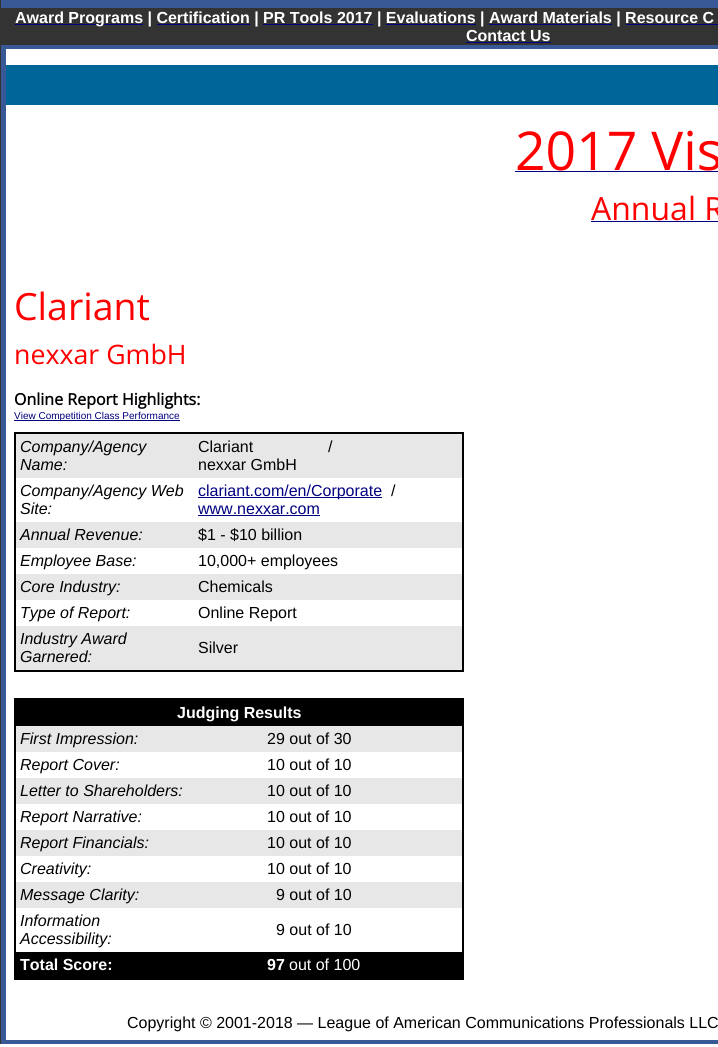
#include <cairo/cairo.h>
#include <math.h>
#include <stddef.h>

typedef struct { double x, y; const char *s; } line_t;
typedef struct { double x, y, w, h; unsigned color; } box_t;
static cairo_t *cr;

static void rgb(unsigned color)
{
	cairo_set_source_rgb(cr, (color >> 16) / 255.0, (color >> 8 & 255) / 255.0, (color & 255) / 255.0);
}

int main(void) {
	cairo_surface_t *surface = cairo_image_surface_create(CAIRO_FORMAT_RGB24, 718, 1047);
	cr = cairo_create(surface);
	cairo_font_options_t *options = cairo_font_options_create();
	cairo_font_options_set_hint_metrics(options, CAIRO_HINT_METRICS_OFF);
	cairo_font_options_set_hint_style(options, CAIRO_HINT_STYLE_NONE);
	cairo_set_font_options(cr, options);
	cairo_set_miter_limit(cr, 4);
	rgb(0xffffff);
	cairo_paint(cr);
	{
		static const box_t items[] = {
			{0, 0, 1, 1044, 0x333333},
			{1, 0, 717, 8, 0x395996},
			{1, 8, 717, 37, 0x333333},
			{15, 24, 128, 1, 0x000080},
			{466, 42, 85, 1, 0x000080},
			{1, 45, 717, 4, 0x395996},
			{1, 49, 5, 991, 0x395996},
			{6, 65, 712, 40, 0x006699},
			{515, 171, 203, 1, 0x000080},
			{591, 221, 127, 1, 0x000080},
			{14, 420, 166, 1, 0x000080},
			{16, 434, 446, 44, 0xe7e7e7},
			{14, 432, 450, 2, 0x000000},
			{14, 432, 2, 194, 0x000000},
			{462, 432, 2, 240, 0x000000},
			{198, 497, 184, 1, 0x000080},
			{198, 515, 122, 1, 0x000080},
			{16, 522, 446, 26, 0xe7e7e7},
			{16, 574, 446, 26, 0xe7e7e7},
			{16, 626, 446, 44, 0xe7e7e7},
			{14, 670, 450, 2, 0x000000},
			{14, 626, 2, 46, 0x000000},
			{14, 698, 450, 28, 0x000000},
			{16, 726, 446, 26, 0xe7e7e7},
			{14, 726, 2, 226, 0x000000},
			{462, 726, 2, 226, 0x000000},
			{16, 778, 446, 26, 0xe7e7e7},
			{16, 830, 446, 26, 0xe7e7e7},
			{16, 882, 446, 26, 0xe7e7e7},
			{14, 952, 450, 28, 0x000000},
			{1, 1040, 717, 4, 0x395996},
		};
		for (size_t i = 0; i < sizeof items / sizeof *items; i++) {
			rgb(items[i].color);
			cairo_rectangle(cr, items[i].x, items[i].y, items[i].w, items[i].h);
			cairo_fill(cr);
		}
	}
	cairo_select_font_face(cr, "Liberation Sans", CAIRO_FONT_SLANT_NORMAL, CAIRO_FONT_WEIGHT_BOLD);
	cairo_set_font_size(cr, 16);
	rgb(0xffffff);
	cairo_move_to(cr, 15, 23);
	cairo_show_text(cr, "Award Programs | Certification | PR Tools 2017 | Evaluations | Award Materials | Resource C");
	{
		static const box_t items[] = {
			{157, 24, 93, 1, 0x000080},
			{263, 24, 110, 1, 0x000080},
			{386, 24, 90, 1, 0x000080},
			{489, 24, 123, 1, 0x000080},
			{626, 24, 92, 1, 0x000080},
		};
		for (size_t i = 0; i < sizeof items / sizeof *items; i++) {
			rgb(items[i].color);
			cairo_rectangle(cr, items[i].x, items[i].y, items[i].w, items[i].h);
			cairo_fill(cr);
		}
	}
	rgb(0xffffff);
	cairo_move_to(cr, 466, 41);
	cairo_show_text(cr, "Contact Us");
	cairo_select_font_face(cr, "Open Sans", CAIRO_FONT_SLANT_NORMAL, CAIRO_FONT_WEIGHT_NORMAL);
	cairo_set_font_size(cr, 53.5);
	rgb(0xff0000);
	cairo_move_to(cr, 515, 170);
	cairo_show_text(cr, "2017 Vis");
	cairo_set_font_size(cr, 32);
	cairo_move_to(cr, 591, 220);
	cairo_show_text(cr, "Annual R");
	cairo_set_font_size(cr, 37.5);
	cairo_move_to(cr, 14, 320);
	cairo_show_text(cr, "Clariant");
	cairo_set_font_size(cr, 26.75);
	cairo_move_to(cr, 14, 364);
	cairo_show_text(cr, "nexxar GmbH");
	cairo_select_font_face(cr, "Open Sans", CAIRO_FONT_SLANT_NORMAL, CAIRO_FONT_WEIGHT_BOLD);
	cairo_set_font_size(cr, 16);
	rgb(0x000000);
	cairo_move_to(cr, 14, 405);
	cairo_show_text(cr, "Online Report Highlights:");
	cairo_select_font_face(cr, "Liberation Sans", CAIRO_FONT_SLANT_NORMAL, CAIRO_FONT_WEIGHT_NORMAL);
	cairo_set_font_size(cr, 10);
	rgb(0x000080);
	cairo_move_to(cr, 14, 419);
	cairo_show_text(cr, "View Competition Class Performance");
	cairo_select_font_face(cr, "Liberation Sans", CAIRO_FONT_SLANT_ITALIC, CAIRO_FONT_WEIGHT_NORMAL);
	cairo_set_font_size(cr, 16);
	rgb(0x000000);
	cairo_move_to(cr, 20, 452);
	cairo_show_text(cr, "Company/Agency");
	cairo_move_to(cr, 20, 470);
	cairo_show_text(cr, "Name:");
	cairo_select_font_face(cr, "Liberation Sans", CAIRO_FONT_SLANT_NORMAL, CAIRO_FONT_WEIGHT_NORMAL);
	{
		static const line_t items[] = {
			{198, 452, "Clariant"},
			{328, 452, "/"},
			{198, 470, "nexxar GmbH"},
		};
		for (size_t i = 0; i < sizeof items / sizeof *items; i++) {
			cairo_move_to(cr, items[i].x, items[i].y);
			cairo_show_text(cr, items[i].s);
		}
	}
	cairo_select_font_face(cr, "Liberation Sans", CAIRO_FONT_SLANT_ITALIC, CAIRO_FONT_WEIGHT_NORMAL);
	cairo_move_to(cr, 20, 496);
	cairo_show_text(cr, "Company/Agency Web");
	cairo_move_to(cr, 20, 514);
	cairo_show_text(cr, "Site:");
	cairo_select_font_face(cr, "Liberation Sans", CAIRO_FONT_SLANT_NORMAL, CAIRO_FONT_WEIGHT_NORMAL);
	rgb(0x000080);
	cairo_move_to(cr, 198, 496);
	cairo_show_text(cr, "clariant.com/en/Corporate");
	rgb(0x000000);
	cairo_move_to(cr, 391, 496);
	cairo_show_text(cr, "/");
	rgb(0x000080);
	cairo_move_to(cr, 198, 514);
	cairo_show_text(cr, "www.nexxar.com");
	cairo_select_font_face(cr, "Liberation Sans", CAIRO_FONT_SLANT_ITALIC, CAIRO_FONT_WEIGHT_NORMAL);
	rgb(0x000000);
	cairo_move_to(cr, 20, 540);
	cairo_show_text(cr, "Annual Revenue:");
	cairo_select_font_face(cr, "Liberation Sans", CAIRO_FONT_SLANT_NORMAL, CAIRO_FONT_WEIGHT_NORMAL);
	cairo_move_to(cr, 198, 540);
	cairo_show_text(cr, "$1 - $10 billion");
	cairo_select_font_face(cr, "Liberation Sans", CAIRO_FONT_SLANT_ITALIC, CAIRO_FONT_WEIGHT_NORMAL);
	cairo_move_to(cr, 20, 566);
	cairo_show_text(cr, "Employee Base:");
	cairo_select_font_face(cr, "Liberation Sans", CAIRO_FONT_SLANT_NORMAL, CAIRO_FONT_WEIGHT_NORMAL);
	cairo_move_to(cr, 198, 566);
	cairo_show_text(cr, "10,000+ employees");
	cairo_select_font_face(cr, "Liberation Sans", CAIRO_FONT_SLANT_ITALIC, CAIRO_FONT_WEIGHT_NORMAL);
	cairo_move_to(cr, 20, 592);
	cairo_show_text(cr, "Core Industry:");
	cairo_select_font_face(cr, "Liberation Sans", CAIRO_FONT_SLANT_NORMAL, CAIRO_FONT_WEIGHT_NORMAL);
	cairo_move_to(cr, 198, 592);
	cairo_show_text(cr, "Chemicals");
	cairo_select_font_face(cr, "Liberation Sans", CAIRO_FONT_SLANT_ITALIC, CAIRO_FONT_WEIGHT_NORMAL);
	cairo_move_to(cr, 20, 618);
	cairo_show_text(cr, "Type of Report:");
	cairo_select_font_face(cr, "Liberation Sans", CAIRO_FONT_SLANT_NORMAL, CAIRO_FONT_WEIGHT_NORMAL);
	cairo_move_to(cr, 198, 618);
	cairo_show_text(cr, "Online Report");
	cairo_select_font_face(cr, "Liberation Sans", CAIRO_FONT_SLANT_ITALIC, CAIRO_FONT_WEIGHT_NORMAL);
	cairo_move_to(cr, 20, 644);
	cairo_show_text(cr, "Industry Award");
	cairo_move_to(cr, 20, 662);
	cairo_show_text(cr, "Garnered:");
	cairo_select_font_face(cr, "Liberation Sans", CAIRO_FONT_SLANT_NORMAL, CAIRO_FONT_WEIGHT_NORMAL);
	cairo_move_to(cr, 198, 653);
	cairo_show_text(cr, "Silver");
	cairo_select_font_face(cr, "Liberation Sans", CAIRO_FONT_SLANT_NORMAL, CAIRO_FONT_WEIGHT_BOLD);
	rgb(0xffffff);
	cairo_move_to(cr, 177, 718);
	cairo_show_text(cr, "Judging Results");
	cairo_select_font_face(cr, "Liberation Sans", CAIRO_FONT_SLANT_ITALIC, CAIRO_FONT_WEIGHT_NORMAL);
	rgb(0x000000);
	cairo_move_to(cr, 20, 744);
	cairo_show_text(cr, "First Impression:");
	cairo_select_font_face(cr, "Liberation Sans", CAIRO_FONT_SLANT_NORMAL, CAIRO_FONT_WEIGHT_NORMAL);
	cairo_move_to(cr, 267, 744);
	cairo_show_text(cr, "29 out of 30");
	cairo_select_font_face(cr, "Liberation Sans", CAIRO_FONT_SLANT_ITALIC, CAIRO_FONT_WEIGHT_NORMAL);
	cairo_move_to(cr, 20, 770);
	cairo_show_text(cr, "Report Cover:");
	cairo_select_font_face(cr, "Liberation Sans", CAIRO_FONT_SLANT_NORMAL, CAIRO_FONT_WEIGHT_NORMAL);
	cairo_move_to(cr, 267, 770);
	cairo_show_text(cr, "10 out of 10");
	cairo_select_font_face(cr, "Liberation Sans", CAIRO_FONT_SLANT_ITALIC, CAIRO_FONT_WEIGHT_NORMAL);
	cairo_move_to(cr, 20, 796);
	cairo_show_text(cr, "Letter to Shareholders:");
	cairo_select_font_face(cr, "Liberation Sans", CAIRO_FONT_SLANT_NORMAL, CAIRO_FONT_WEIGHT_NORMAL);
	cairo_move_to(cr, 267, 796);
	cairo_show_text(cr, "10 out of 10");
	cairo_select_font_face(cr, "Liberation Sans", CAIRO_FONT_SLANT_ITALIC, CAIRO_FONT_WEIGHT_NORMAL);
	cairo_move_to(cr, 20, 822);
	cairo_show_text(cr, "Report Narrative:");
	cairo_select_font_face(cr, "Liberation Sans", CAIRO_FONT_SLANT_NORMAL, CAIRO_FONT_WEIGHT_NORMAL);
	cairo_move_to(cr, 267, 822);
	cairo_show_text(cr, "10 out of 10");
	cairo_select_font_face(cr, "Liberation Sans", CAIRO_FONT_SLANT_ITALIC, CAIRO_FONT_WEIGHT_NORMAL);
	cairo_move_to(cr, 20, 848);
	cairo_show_text(cr, "Report Financials:");
	cairo_select_font_face(cr, "Liberation Sans", CAIRO_FONT_SLANT_NORMAL, CAIRO_FONT_WEIGHT_NORMAL);
	cairo_move_to(cr, 267, 848);
	cairo_show_text(cr, "10 out of 10");
	cairo_select_font_face(cr, "Liberation Sans", CAIRO_FONT_SLANT_ITALIC, CAIRO_FONT_WEIGHT_NORMAL);
	cairo_move_to(cr, 20, 874);
	cairo_show_text(cr, "Creativity:");
	cairo_select_font_face(cr, "Liberation Sans", CAIRO_FONT_SLANT_NORMAL, CAIRO_FONT_WEIGHT_NORMAL);
	cairo_move_to(cr, 267, 874);
	cairo_show_text(cr, "10 out of 10");
	cairo_select_font_face(cr, "Liberation Sans", CAIRO_FONT_SLANT_ITALIC, CAIRO_FONT_WEIGHT_NORMAL);
	cairo_move_to(cr, 20, 900);
	cairo_show_text(cr, "Message Clarity:");
	cairo_select_font_face(cr, "Liberation Sans", CAIRO_FONT_SLANT_NORMAL, CAIRO_FONT_WEIGHT_NORMAL);
	cairo_move_to(cr, 276, 900);
	cairo_show_text(cr, "9 out of 10");
	cairo_select_font_face(cr, "Liberation Sans", CAIRO_FONT_SLANT_ITALIC, CAIRO_FONT_WEIGHT_NORMAL);
	cairo_move_to(cr, 20, 926);
	cairo_show_text(cr, "Information");
	cairo_move_to(cr, 20, 944);
	cairo_show_text(cr, "Accessibility:");
	cairo_select_font_face(cr, "Liberation Sans", CAIRO_FONT_SLANT_NORMAL, CAIRO_FONT_WEIGHT_NORMAL);
	cairo_move_to(cr, 276, 935);
	cairo_show_text(cr, "9 out of 10");
	cairo_select_font_face(cr, "Liberation Sans", CAIRO_FONT_SLANT_NORMAL, CAIRO_FONT_WEIGHT_BOLD);
	rgb(0xffffff);
	cairo_move_to(cr, 20, 970);
	cairo_show_text(cr, "Total Score:");
	cairo_move_to(cr, 267, 970);
	cairo_show_text(cr, "97");
	cairo_select_font_face(cr, "Liberation Sans", CAIRO_FONT_SLANT_NORMAL, CAIRO_FONT_WEIGHT_NORMAL);
	cairo_move_to(cr, 289, 970);
	cairo_show_text(cr, "out of 100");
	rgb(0x000000);
	cairo_move_to(cr, 127, 1028);
	cairo_show_text(cr, "Copyright © 2001-2018 — League of American Communications Professionals LLC");
	cairo_surface_write_to_png(surface, "page.png");
	cairo_font_options_destroy(options);
	cairo_destroy(cr);
	cairo_surface_destroy(surface);
	return 0;
}
